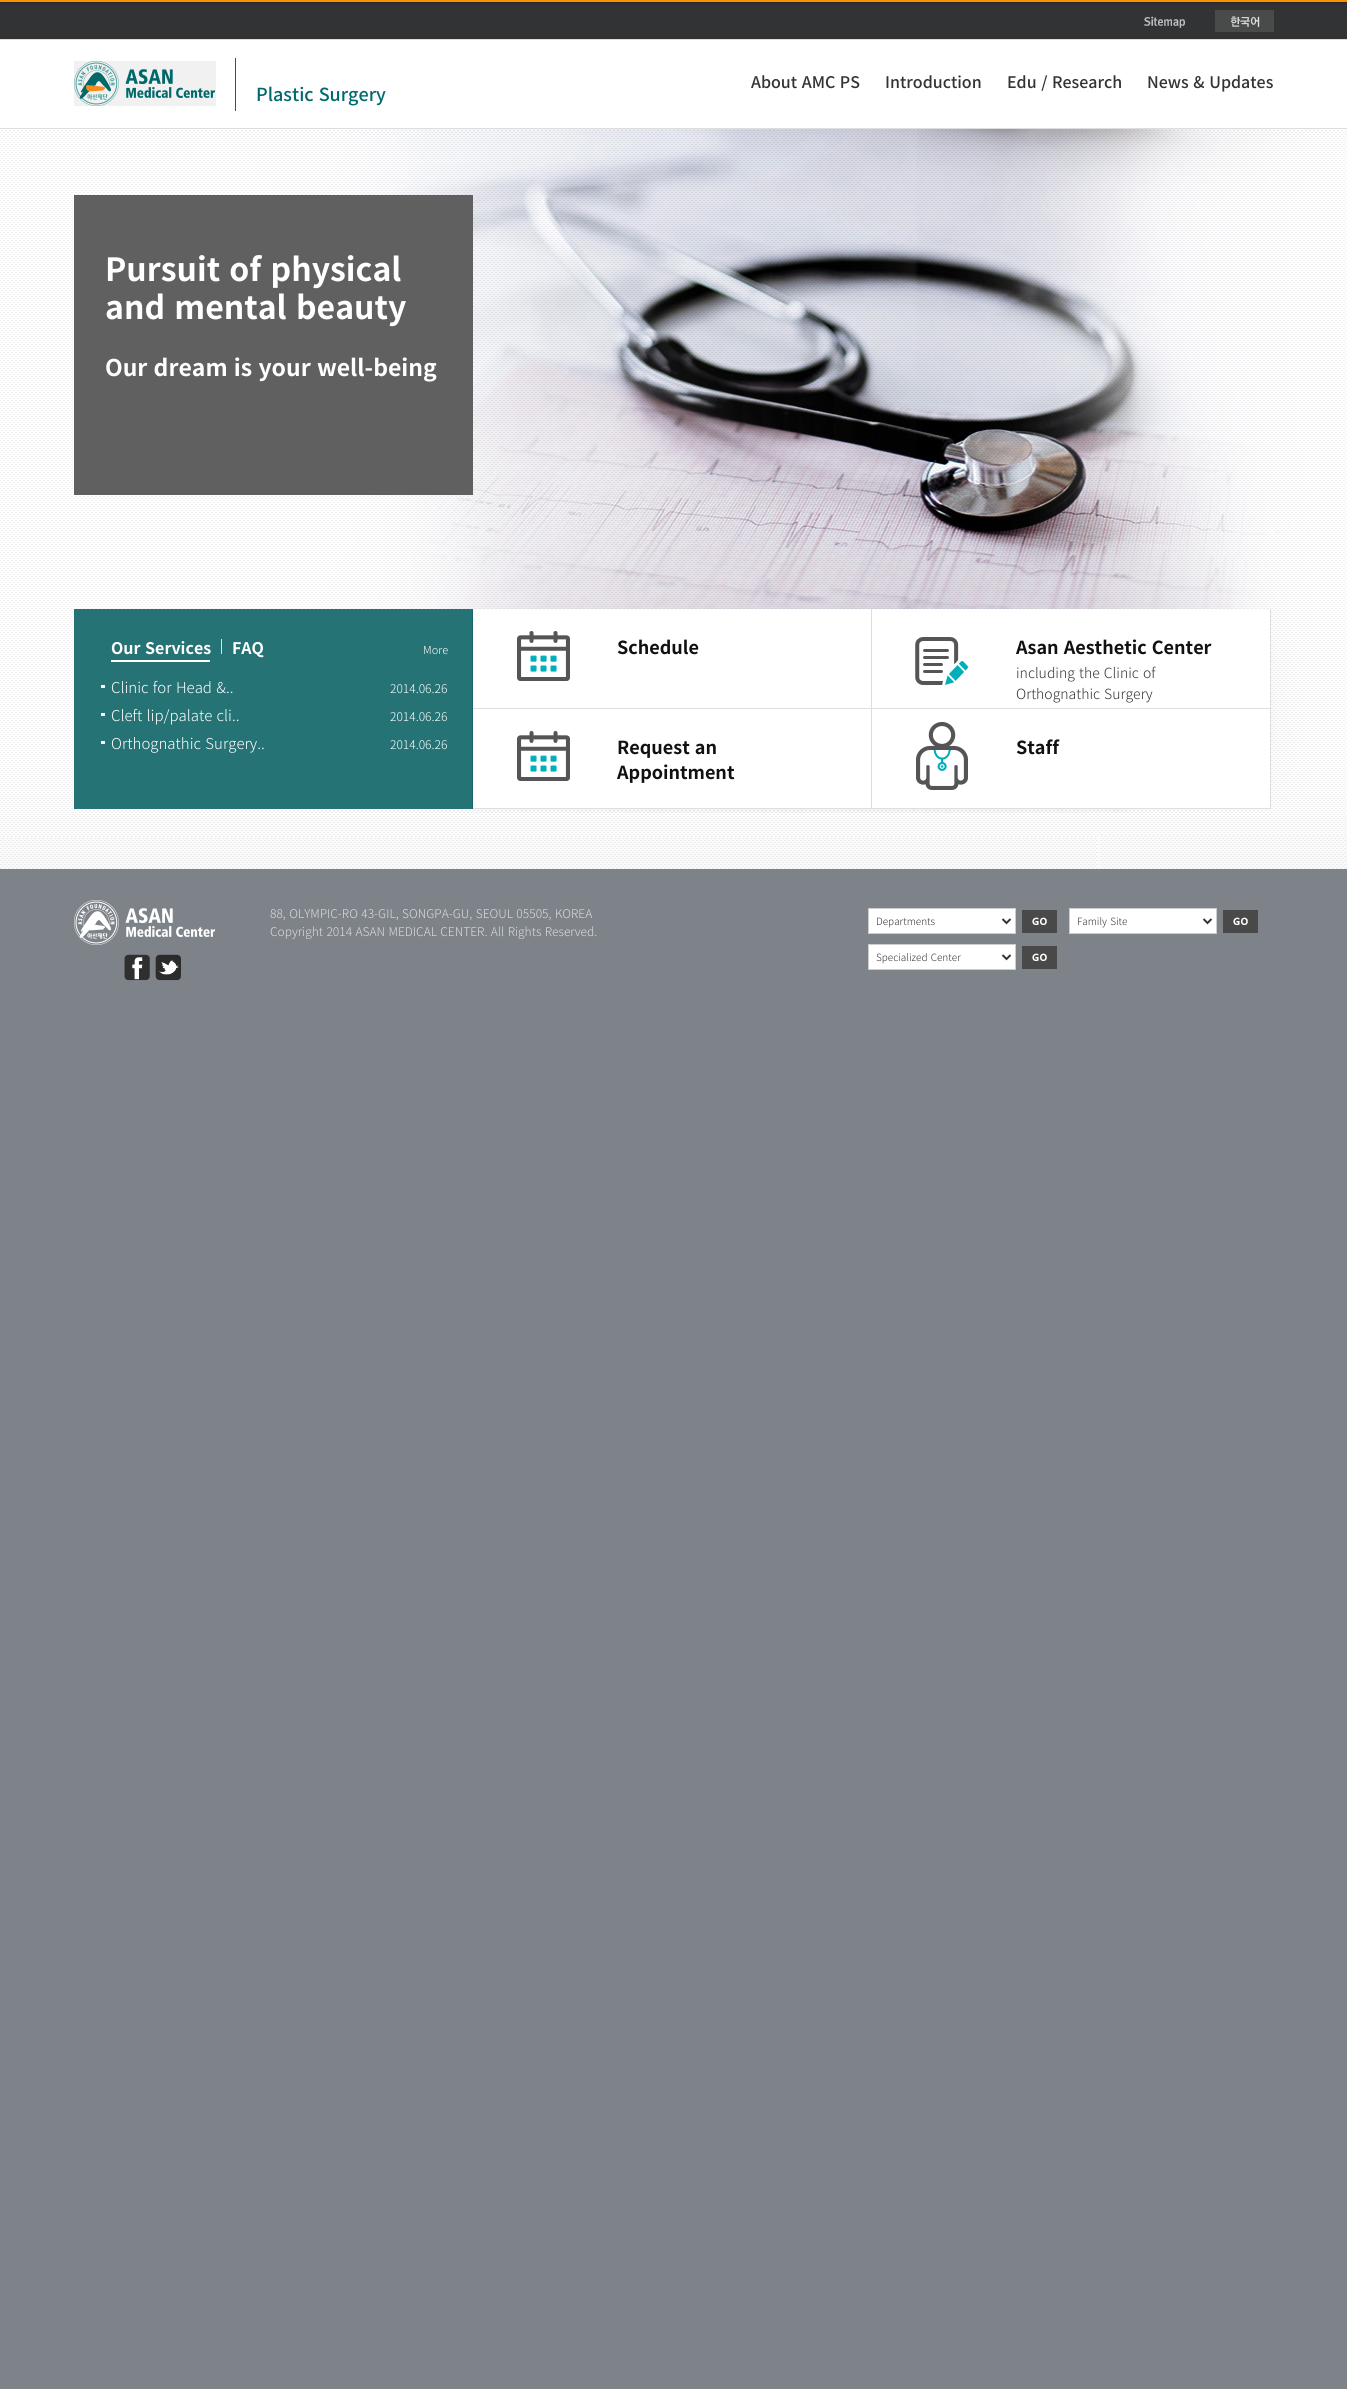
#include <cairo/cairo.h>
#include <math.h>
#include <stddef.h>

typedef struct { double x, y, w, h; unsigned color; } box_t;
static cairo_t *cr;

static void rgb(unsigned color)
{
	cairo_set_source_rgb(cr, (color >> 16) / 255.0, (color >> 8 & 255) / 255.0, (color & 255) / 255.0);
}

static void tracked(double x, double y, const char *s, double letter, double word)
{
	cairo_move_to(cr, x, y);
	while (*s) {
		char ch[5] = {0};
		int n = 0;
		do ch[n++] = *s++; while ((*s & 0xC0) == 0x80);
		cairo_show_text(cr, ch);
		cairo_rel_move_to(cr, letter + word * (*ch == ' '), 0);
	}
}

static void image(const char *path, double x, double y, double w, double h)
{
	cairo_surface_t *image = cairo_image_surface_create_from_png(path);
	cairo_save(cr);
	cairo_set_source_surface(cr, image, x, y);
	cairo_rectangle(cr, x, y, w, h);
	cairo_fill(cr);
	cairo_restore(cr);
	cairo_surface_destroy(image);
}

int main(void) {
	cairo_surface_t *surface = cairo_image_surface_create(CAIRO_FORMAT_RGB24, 1347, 2389);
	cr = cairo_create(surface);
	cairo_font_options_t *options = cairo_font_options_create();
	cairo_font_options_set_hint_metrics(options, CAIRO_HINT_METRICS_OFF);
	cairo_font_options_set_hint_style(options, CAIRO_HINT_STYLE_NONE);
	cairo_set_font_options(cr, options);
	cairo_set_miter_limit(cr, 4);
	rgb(0x7e8389);
	cairo_paint(cr);
	image("img/1.png", 0, 1, 1347, 128);
	rgb(0xff9000);
	cairo_rectangle(cr, 0, 0, 1347, 1);
	cairo_fill(cr);
	image("img/2.png", 1144, 16, 41, 12);
	image("img/3.png", 1215, 10, 59, 22);
	image("img/4.png", 74, 61, 142, 45);
	rgb(0x00696d);
	cairo_rectangle(cr, 235, 58, 1, 53);
	cairo_fill(cr);
	image("img/5.png", 0, 129, 1347, 740);
	{
		static const box_t items[] = {
			{74, 195, 399, 300, 0x606060},
			{74, 609, 398, 200, 0x267376},
			{472, 609, 1, 200, 0x19676c},
			{221, 639, 1, 15, 0xd4e3e4},
			{111, 660, 99, 2, 0xffffff},
			{101, 685, 4, 3, 0xffffff},
			{101, 713, 4, 3, 0xffffff},
			{101, 741, 4, 3, 0xffffff},
			{473, 609, 398, 199, 0xffffff},
		};
		for (size_t i = 0; i < sizeof items / sizeof *items; i++) {
			rgb(items[i].color);
			cairo_rectangle(cr, items[i].x, items[i].y, items[i].w, items[i].h);
			cairo_fill(cr);
		}
	}
	image("img/6.png", 517, 631, 53, 50);
	rgb(0xdedede);
	cairo_rectangle(cr, 871, 609, 1, 200);
	cairo_fill(cr);
	cairo_rectangle(cr, 473, 708, 399, 1);
	cairo_fill(cr);
	image("img/6.png", 517, 731, 53, 50);
	cairo_rectangle(cr, 473, 808, 399, 1);
	cairo_fill(cr);
	rgb(0xffffff);
	cairo_rectangle(cr, 872, 609, 398, 199);
	cairo_fill(cr);
	image("img/7.png", 915, 637, 53, 48);
	rgb(0xdedede);
	cairo_rectangle(cr, 1270, 609, 1, 200);
	cairo_fill(cr);
	cairo_rectangle(cr, 872, 708, 399, 1);
	cairo_fill(cr);
	image("img/8.png", 916, 722, 52, 68);
	cairo_rectangle(cr, 872, 808, 399, 1);
	cairo_fill(cr);
	image("img/9.png", 74, 900, 141, 45);
	image("img/10.png", 124, 954, 26, 27);
	image("img/11.png", 155, 954, 26, 27);
	rgb(0xffffff);
	cairo_rectangle(cr, 868.5, 908.5, 147, 25);
	cairo_fill_preserve(cr);
	rgb(0xcdcdcd);
	cairo_set_line_width(cr, 1);
	cairo_stroke(cr);
	cairo_new_path(cr);
	cairo_move_to(cr, 1002.5, 919);
	cairo_line_to(cr, 1006.5, 923);
	cairo_line_to(cr, 1010.5, 919);
	rgb(0x333333);
	cairo_set_line_width(cr, 2);
	cairo_stroke(cr);
	image("img/12.png", 1022, 910, 35, 23);
	rgb(0xffffff);
	cairo_rectangle(cr, 1069.5, 908.5, 147, 25);
	cairo_fill_preserve(cr);
	rgb(0xcdcdcd);
	cairo_set_line_width(cr, 1);
	cairo_stroke(cr);
	cairo_new_path(cr);
	cairo_move_to(cr, 1203.5, 919);
	cairo_line_to(cr, 1207.5, 923);
	cairo_line_to(cr, 1211.5, 919);
	rgb(0x333333);
	cairo_set_line_width(cr, 2);
	cairo_stroke(cr);
	image("img/12.png", 1223, 910, 35, 23);
	rgb(0xffffff);
	cairo_rectangle(cr, 868.5, 944.5, 147, 25);
	cairo_fill_preserve(cr);
	rgb(0xcdcdcd);
	cairo_set_line_width(cr, 1);
	cairo_stroke(cr);
	cairo_new_path(cr);
	cairo_move_to(cr, 1002.5, 955);
	cairo_line_to(cr, 1006.5, 959);
	cairo_line_to(cr, 1010.5, 955);
	rgb(0x333333);
	cairo_set_line_width(cr, 2);
	cairo_stroke(cr);
	image("img/12.png", 1022, 946, 35, 23);
	cairo_select_font_face(cr, "Noto Sans KR Medium", CAIRO_FONT_SLANT_NORMAL, CAIRO_FONT_WEIGHT_NORMAL);
	cairo_set_font_size(cr, 16);
	tracked(751, 88, "About AMC PS", 0, 1);
	cairo_move_to(cr, 885, 88);
	cairo_show_text(cr, "Introduction");
	tracked(1007, 88, "Edu / Research", 0, 1);
	tracked(1147, 88, "News & Updates", 0, 1);
	cairo_set_font_size(cr, 18);
	rgb(0x00696d);
	tracked(256, 101, "Plastic Surgery", 0, 1);
	cairo_select_font_face(cr, "Noto Sans KR", CAIRO_FONT_SLANT_NORMAL, CAIRO_FONT_WEIGHT_BOLD);
	cairo_set_font_size(cr, 32);
	rgb(0xffffff);
	tracked(105, 281, "Pursuit of physical", 0, 2);
	tracked(105, 319, "and mental beauty", 0, 2);
	cairo_set_font_size(cr, 23);
	tracked(105, 376, "Our dream is your well-being", 0, 1);
	cairo_set_font_size(cr, 16);
	tracked(111, 654, "Our Services", 0, 1);
	cairo_move_to(cr, 232, 654);
	cairo_show_text(cr, "FAQ");
	cairo_select_font_face(cr, "Noto Sans KR Light", CAIRO_FONT_SLANT_NORMAL, CAIRO_FONT_WEIGHT_NORMAL);
	cairo_set_font_size(cr, 11);
	cairo_move_to(cr, 423, 654);
	cairo_show_text(cr, "More");
	cairo_set_font_size(cr, 15);
	tracked(111, 693, "Clinic for Head &..", 0, 1);
	cairo_set_font_size(cr, 12);
	cairo_move_to(cr, 390, 693);
	cairo_show_text(cr, "2014.06.26");
	cairo_set_font_size(cr, 15);
	tracked(111, 721, "Cleft lip/palate cli..", 0, 1);
	cairo_set_font_size(cr, 12);
	cairo_move_to(cr, 390, 721);
	cairo_show_text(cr, "2014.06.26");
	cairo_set_font_size(cr, 15);
	tracked(111, 749, "Orthognathic Surgery..", 0, 1);
	cairo_set_font_size(cr, 12);
	cairo_move_to(cr, 390, 749);
	cairo_show_text(cr, "2014.06.26");
	cairo_select_font_face(cr, "Noto Sans KR", CAIRO_FONT_SLANT_NORMAL, CAIRO_FONT_WEIGHT_BOLD);
	cairo_set_font_size(cr, 18);
	rgb(0x111111);
	cairo_move_to(cr, 617, 654);
	cairo_show_text(cr, "Schedule");
	tracked(617, 754, "Request an", 0, 1);
	cairo_move_to(cr, 617, 779);
	cairo_show_text(cr, "Appointment");
	tracked(1016, 654, "Asan Aesthetic Center", 0, 1);
	cairo_select_font_face(cr, "Noto Sans KR Light", CAIRO_FONT_SLANT_NORMAL, CAIRO_FONT_WEIGHT_NORMAL);
	cairo_set_font_size(cr, 14);
	rgb(0x333333);
	tracked(1016, 678, "including the Clinic of", 0, 1);
	tracked(1016, 699, "Orthognathic Surgery", 0, 1);
	cairo_select_font_face(cr, "Noto Sans KR", CAIRO_FONT_SLANT_NORMAL, CAIRO_FONT_WEIGHT_BOLD);
	cairo_set_font_size(cr, 18);
	rgb(0x111111);
	cairo_move_to(cr, 1016, 754);
	cairo_show_text(cr, "Staff");
	cairo_select_font_face(cr, "Noto Sans KR Light", CAIRO_FONT_SLANT_NORMAL, CAIRO_FONT_WEIGHT_NORMAL);
	cairo_set_font_size(cr, 12);
	rgb(0xdddddd);
	tracked(270, 918, "88, OLYMPIC-RO 43-GIL, SONGPA-GU, SEOUL 05505, KOREA", 0, 0.75);
	tracked(270, 936, "Copyright 2014 ASAN MEDICAL CENTER. All Rights Reserved.", 0, 0.75);
	cairo_set_font_size(cr, 10);
	rgb(0x333333);
	cairo_move_to(cr, 876, 925);
	cairo_show_text(cr, "Departments");
	tracked(1077, 925, "Family Site", 0, 1);
	tracked(876, 961, "Specialized Center", 0, 1);
	cairo_surface_write_to_png(surface, "page.png");
	cairo_font_options_destroy(options);
	cairo_destroy(cr);
	cairo_surface_destroy(surface);
	return 0;
}
